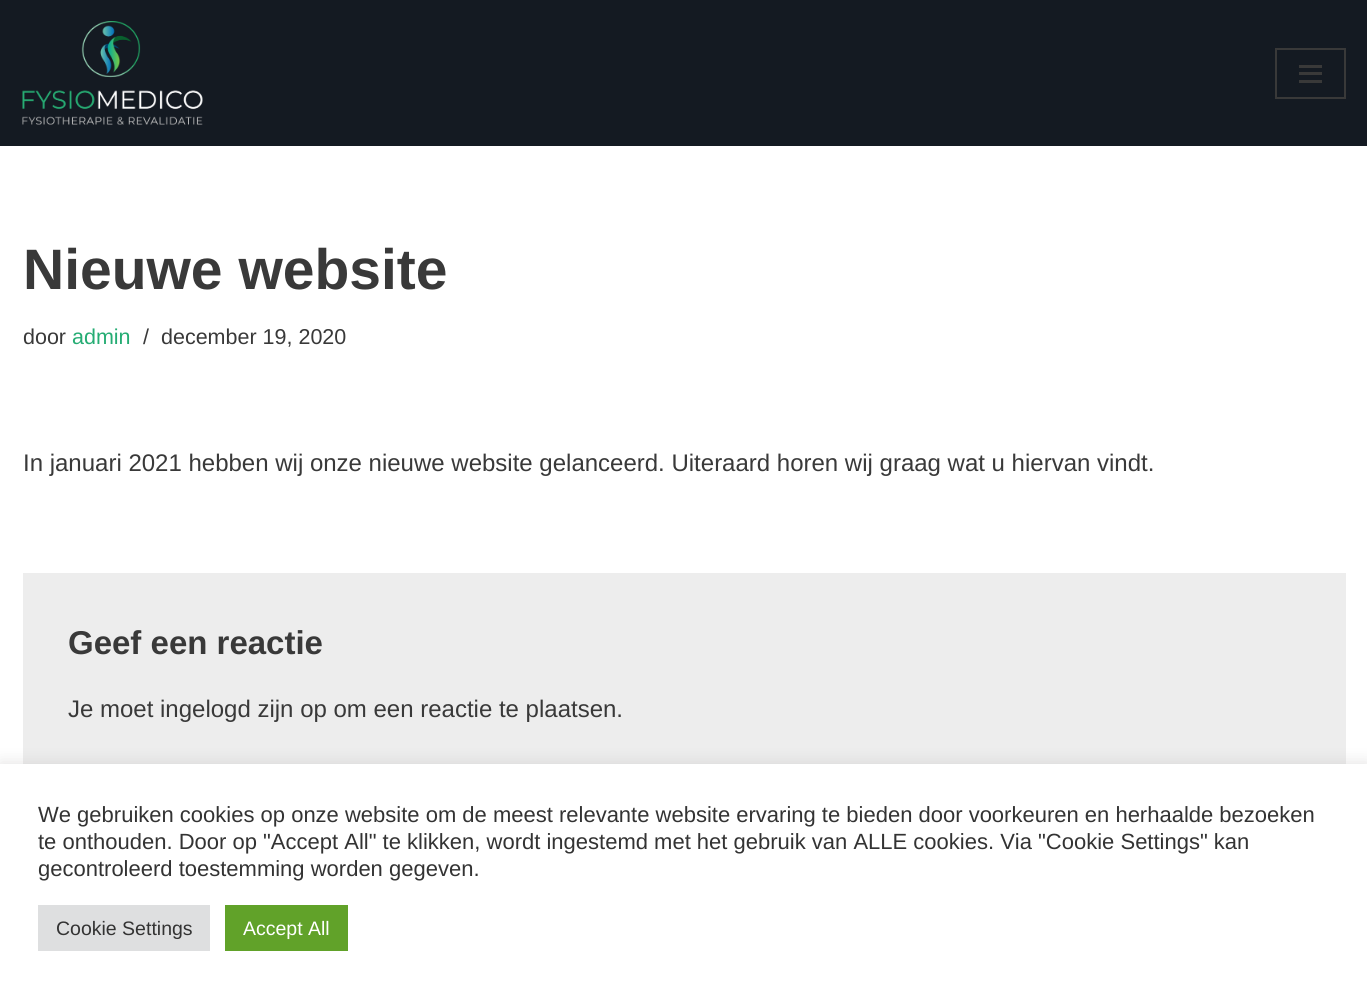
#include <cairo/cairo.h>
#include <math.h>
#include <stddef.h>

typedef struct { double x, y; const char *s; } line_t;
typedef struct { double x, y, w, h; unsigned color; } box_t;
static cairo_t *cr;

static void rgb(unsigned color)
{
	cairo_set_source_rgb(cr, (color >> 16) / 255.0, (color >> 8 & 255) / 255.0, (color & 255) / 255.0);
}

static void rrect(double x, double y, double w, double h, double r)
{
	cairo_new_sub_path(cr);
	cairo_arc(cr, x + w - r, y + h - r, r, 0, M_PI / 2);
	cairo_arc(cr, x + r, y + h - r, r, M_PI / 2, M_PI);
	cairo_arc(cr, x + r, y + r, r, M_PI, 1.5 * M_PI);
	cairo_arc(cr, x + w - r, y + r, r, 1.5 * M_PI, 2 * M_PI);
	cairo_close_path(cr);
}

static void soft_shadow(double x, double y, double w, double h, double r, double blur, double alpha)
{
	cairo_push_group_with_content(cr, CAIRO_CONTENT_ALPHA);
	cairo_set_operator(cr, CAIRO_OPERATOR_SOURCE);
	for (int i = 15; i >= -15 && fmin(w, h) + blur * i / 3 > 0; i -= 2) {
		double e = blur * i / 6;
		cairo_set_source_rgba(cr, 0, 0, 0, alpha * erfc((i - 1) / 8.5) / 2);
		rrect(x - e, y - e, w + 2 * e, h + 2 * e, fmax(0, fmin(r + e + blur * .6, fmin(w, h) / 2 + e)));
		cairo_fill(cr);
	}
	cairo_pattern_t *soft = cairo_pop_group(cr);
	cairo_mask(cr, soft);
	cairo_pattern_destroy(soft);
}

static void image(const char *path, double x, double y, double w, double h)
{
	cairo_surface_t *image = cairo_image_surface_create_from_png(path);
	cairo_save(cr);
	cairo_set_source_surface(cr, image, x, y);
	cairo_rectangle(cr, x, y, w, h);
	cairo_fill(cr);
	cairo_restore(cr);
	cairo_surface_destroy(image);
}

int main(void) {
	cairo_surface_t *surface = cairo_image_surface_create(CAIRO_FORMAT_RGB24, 1367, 995);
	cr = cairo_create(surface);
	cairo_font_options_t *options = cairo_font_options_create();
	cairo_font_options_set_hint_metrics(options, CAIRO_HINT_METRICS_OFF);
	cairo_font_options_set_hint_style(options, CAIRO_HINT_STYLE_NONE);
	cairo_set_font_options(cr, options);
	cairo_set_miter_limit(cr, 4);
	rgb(0xffffff);
	cairo_paint(cr);
	rgb(0x141a22);
	cairo_rectangle(cr, 0, 0, 1367, 146);
	cairo_fill(cr);
	image("img/1.png", 22, 21, 181, 104);
	cairo_rectangle(cr, 1276, 49, 69, 49);
	rgb(0x393939);
	cairo_stroke(cr);
	{
		static const box_t items[] = {
			{1299, 65, 23, 3, 0x393939},
			{1299, 72, 23, 3, 0x393939},
			{1299, 80, 23, 3, 0x393939},
			{23, 573, 1323, 191, 0xededed},
		};
		for (size_t i = 0; i < sizeof items / sizeof *items; i++) {
			rgb(items[i].color);
			cairo_rectangle(cr, items[i].x, items[i].y, items[i].w, items[i].h);
			cairo_fill(cr);
		}
	}
	rgb(0xacabab);
	soft_shadow(0, 762, 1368, 233, 0, 7.5, 0.3);
	{
		static const box_t items[] = {
			{0, 764, 1367, 231, 0xffffff},
			{38, 905, 172, 46, 0xdedfe0},
			{225, 905, 123, 46, 0x61a229},
		};
		for (size_t i = 0; i < sizeof items / sizeof *items; i++) {
			rgb(items[i].color);
			cairo_rectangle(cr, items[i].x, items[i].y, items[i].w, items[i].h);
			cairo_fill(cr);
		}
	}
	cairo_select_font_face(cr, "Liberation Sans", CAIRO_FONT_SLANT_NORMAL, CAIRO_FONT_WEIGHT_BOLD);
	cairo_set_font_size(cr, 57);
	rgb(0x393939);
	cairo_move_to(cr, 23, 289);
	cairo_show_text(cr, "Nieuwe website");
	cairo_select_font_face(cr, "Liberation Sans", CAIRO_FONT_SLANT_NORMAL, CAIRO_FONT_WEIGHT_NORMAL);
	cairo_set_font_size(cr, 21.5);
	cairo_move_to(cr, 23, 344);
	cairo_show_text(cr, "door");
	rgb(0x25ac73);
	cairo_move_to(cr, 72, 344);
	cairo_show_text(cr, "admin");
	rgb(0x393939);
	cairo_move_to(cr, 143, 344);
	cairo_show_text(cr, "/");
	cairo_move_to(cr, 161, 344);
	cairo_show_text(cr, "december 19, 2020");
	cairo_set_font_size(cr, 24);
	cairo_move_to(cr, 23, 471);
	cairo_show_text(cr, "In januari 2021 hebben wij onze nieuwe website gelanceerd. Uiteraard horen wij graag wat u hiervan vindt.");
	cairo_select_font_face(cr, "Liberation Sans", CAIRO_FONT_SLANT_NORMAL, CAIRO_FONT_WEIGHT_BOLD);
	cairo_set_font_size(cr, 33);
	cairo_move_to(cr, 68, 654);
	cairo_show_text(cr, "Geef een reactie");
	cairo_select_font_face(cr, "Liberation Sans", CAIRO_FONT_SLANT_NORMAL, CAIRO_FONT_WEIGHT_NORMAL);
	cairo_set_font_size(cr, 24);
	cairo_move_to(cr, 68, 717);
	cairo_show_text(cr, "Je moet ingelogd zijn op om een reactie te plaatsen.");
	cairo_set_font_size(cr, 22);
	rgb(0x333333);
	{
		static const line_t items[] = {
			{38, 822, "We gebruiken cookies op onze website om de meest relevante website ervaring te bieden door voorkeuren en herhaalde bezoeken"},
			{38, 849, "te onthouden. Door op \"Accept All\" te klikken, wordt ingestemd met het gebruik van ALLE cookies. Via \"Cookie Settings\" kan"},
			{38, 876, "gecontroleerd toestemming worden gegeven."},
		};
		for (size_t i = 0; i < sizeof items / sizeof *items; i++) {
			cairo_move_to(cr, items[i].x, items[i].y);
			cairo_show_text(cr, items[i].s);
		}
	}
	cairo_set_font_size(cr, 19.5);
	cairo_move_to(cr, 56, 935);
	cairo_show_text(cr, "Cookie Settings");
	rgb(0xffffff);
	cairo_move_to(cr, 243, 935);
	cairo_show_text(cr, "Accept All");
	cairo_surface_write_to_png(surface, "page.png");
	cairo_font_options_destroy(options);
	cairo_destroy(cr);
	cairo_surface_destroy(surface);
	return 0;
}
